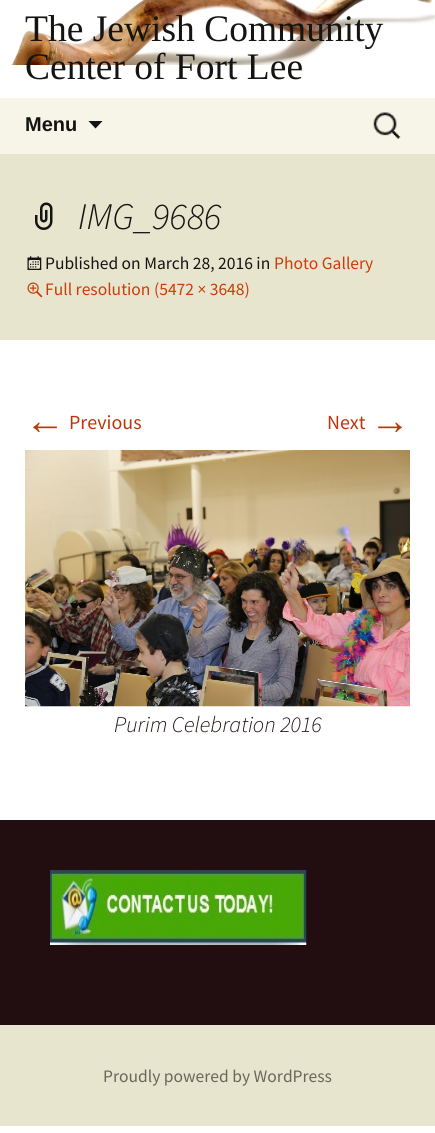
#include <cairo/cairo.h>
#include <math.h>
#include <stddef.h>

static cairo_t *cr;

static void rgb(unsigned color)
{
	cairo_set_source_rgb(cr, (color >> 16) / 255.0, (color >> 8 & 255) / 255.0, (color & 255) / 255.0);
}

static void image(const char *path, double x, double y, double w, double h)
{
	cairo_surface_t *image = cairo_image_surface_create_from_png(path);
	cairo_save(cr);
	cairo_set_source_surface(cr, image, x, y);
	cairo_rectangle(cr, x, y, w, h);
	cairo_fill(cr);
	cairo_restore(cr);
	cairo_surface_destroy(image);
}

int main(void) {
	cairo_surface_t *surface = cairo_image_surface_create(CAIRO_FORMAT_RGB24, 435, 1133);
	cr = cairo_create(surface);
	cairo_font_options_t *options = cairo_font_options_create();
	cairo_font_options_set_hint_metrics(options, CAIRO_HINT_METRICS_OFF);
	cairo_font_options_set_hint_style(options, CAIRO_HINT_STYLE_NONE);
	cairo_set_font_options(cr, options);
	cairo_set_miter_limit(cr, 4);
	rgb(0xffffff);
	cairo_paint(cr);
	image("img/1.png", 11, 0, 424, 65);
	rgb(0xf7f5e7);
	cairo_rectangle(cr, 0, 98, 435, 56);
	cairo_fill(cr);
	rgb(0x141412);
	cairo_new_path(cr);
	cairo_move_to(cr, 88.5, 121);
	cairo_line_to(cr, 95.5, 128.5);
	cairo_line_to(cr, 102.5, 121);
	cairo_close_path(cr);
	cairo_fill(cr);
	image("img/2.png", 373, 112, 28, 27);
	rgb(0xe8e5ce);
	cairo_rectangle(cr, 0, 154, 435, 186);
	cairo_fill(cr);
	image("img/3.png", 35, 202, 18, 28);
	image("img/4.png", 27, 256, 15, 14);
	image("img/5.png", 27, 282, 16, 16);
	image("img/6.png", 25, 450, 385, 257);
	cairo_rectangle(cr, 0, 1025, 435, 101);
	cairo_fill(cr);
	rgb(0x220e10);
	cairo_rectangle(cr, 0, 820, 435, 205);
	cairo_fill(cr);
	image("img/7.png", 50, 870, 257, 75);
	cairo_select_font_face(cr, "Liberation Serif", CAIRO_FONT_SLANT_NORMAL, CAIRO_FONT_WEIGHT_NORMAL);
	cairo_set_font_size(cr, 37.5);
	rgb(0x141412);
	cairo_move_to(cr, 25, 41);
	cairo_show_text(cr, "The Jewish Community");
	cairo_move_to(cr, 25, 79);
	cairo_show_text(cr, "Center of Fort Lee");
	cairo_select_font_face(cr, "Liberation Sans", CAIRO_FONT_SLANT_NORMAL, CAIRO_FONT_WEIGHT_BOLD);
	cairo_set_font_size(cr, 20);
	cairo_move_to(cr, 25, 131);
	cairo_show_text(cr, "Menu");
	cairo_select_font_face(cr, "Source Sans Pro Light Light", CAIRO_FONT_SLANT_ITALIC, CAIRO_FONT_WEIGHT_NORMAL);
	cairo_set_font_size(cr, 37.5);
	cairo_move_to(cr, 78, 229);
	cairo_show_text(cr, "IMG_9686");
	cairo_select_font_face(cr, "Source Sans Pro", CAIRO_FONT_SLANT_NORMAL, CAIRO_FONT_WEIGHT_NORMAL);
	cairo_set_font_size(cr, 17.5);
	cairo_move_to(cr, 45, 269);
	cairo_show_text(cr, "Published on March 28, 2016 in");
	rgb(0xca3c08);
	cairo_move_to(cr, 274, 269);
	cairo_show_text(cr, "Photo Gallery");
	cairo_move_to(cr, 45, 295);
	cairo_show_text(cr, "Full resolution (5472 × 3648)");
	cairo_select_font_face(cr, "Liberation Sans", CAIRO_FONT_SLANT_NORMAL, CAIRO_FONT_WEIGHT_NORMAL);
	cairo_set_font_size(cr, 40);
	rgb(0xbc360a);
	cairo_move_to(cr, 25, 434);
	cairo_show_text(cr, "←");
	cairo_select_font_face(cr, "Source Sans Pro", CAIRO_FONT_SLANT_NORMAL, CAIRO_FONT_WEIGHT_NORMAL);
	cairo_set_font_size(cr, 20);
	cairo_move_to(cr, 69, 429);
	cairo_show_text(cr, "Previous");
	cairo_move_to(cr, 327, 429);
	cairo_show_text(cr, "Next");
	cairo_select_font_face(cr, "Liberation Sans", CAIRO_FONT_SLANT_NORMAL, CAIRO_FONT_WEIGHT_NORMAL);
	cairo_set_font_size(cr, 40);
	cairo_move_to(cr, 370, 434);
	cairo_show_text(cr, "→");
	cairo_select_font_face(cr, "Source Sans Pro Light Light", CAIRO_FONT_SLANT_ITALIC, CAIRO_FONT_WEIGHT_NORMAL);
	cairo_set_font_size(cr, 22.5);
	rgb(0x220e10);
	cairo_move_to(cr, 114, 732);
	cairo_show_text(cr, "Purim Celebration 2016");
	cairo_select_font_face(cr, "Source Sans Pro", CAIRO_FONT_SLANT_NORMAL, CAIRO_FONT_WEIGHT_NORMAL);
	cairo_set_font_size(cr, 17.5);
	rgb(0x686758);
	cairo_move_to(cr, 103, 1082);
	cairo_show_text(cr, "Proudly powered by WordPress");
	cairo_surface_write_to_png(surface, "page.png");
	cairo_font_options_destroy(options);
	cairo_destroy(cr);
	cairo_surface_destroy(surface);
	return 0;
}
